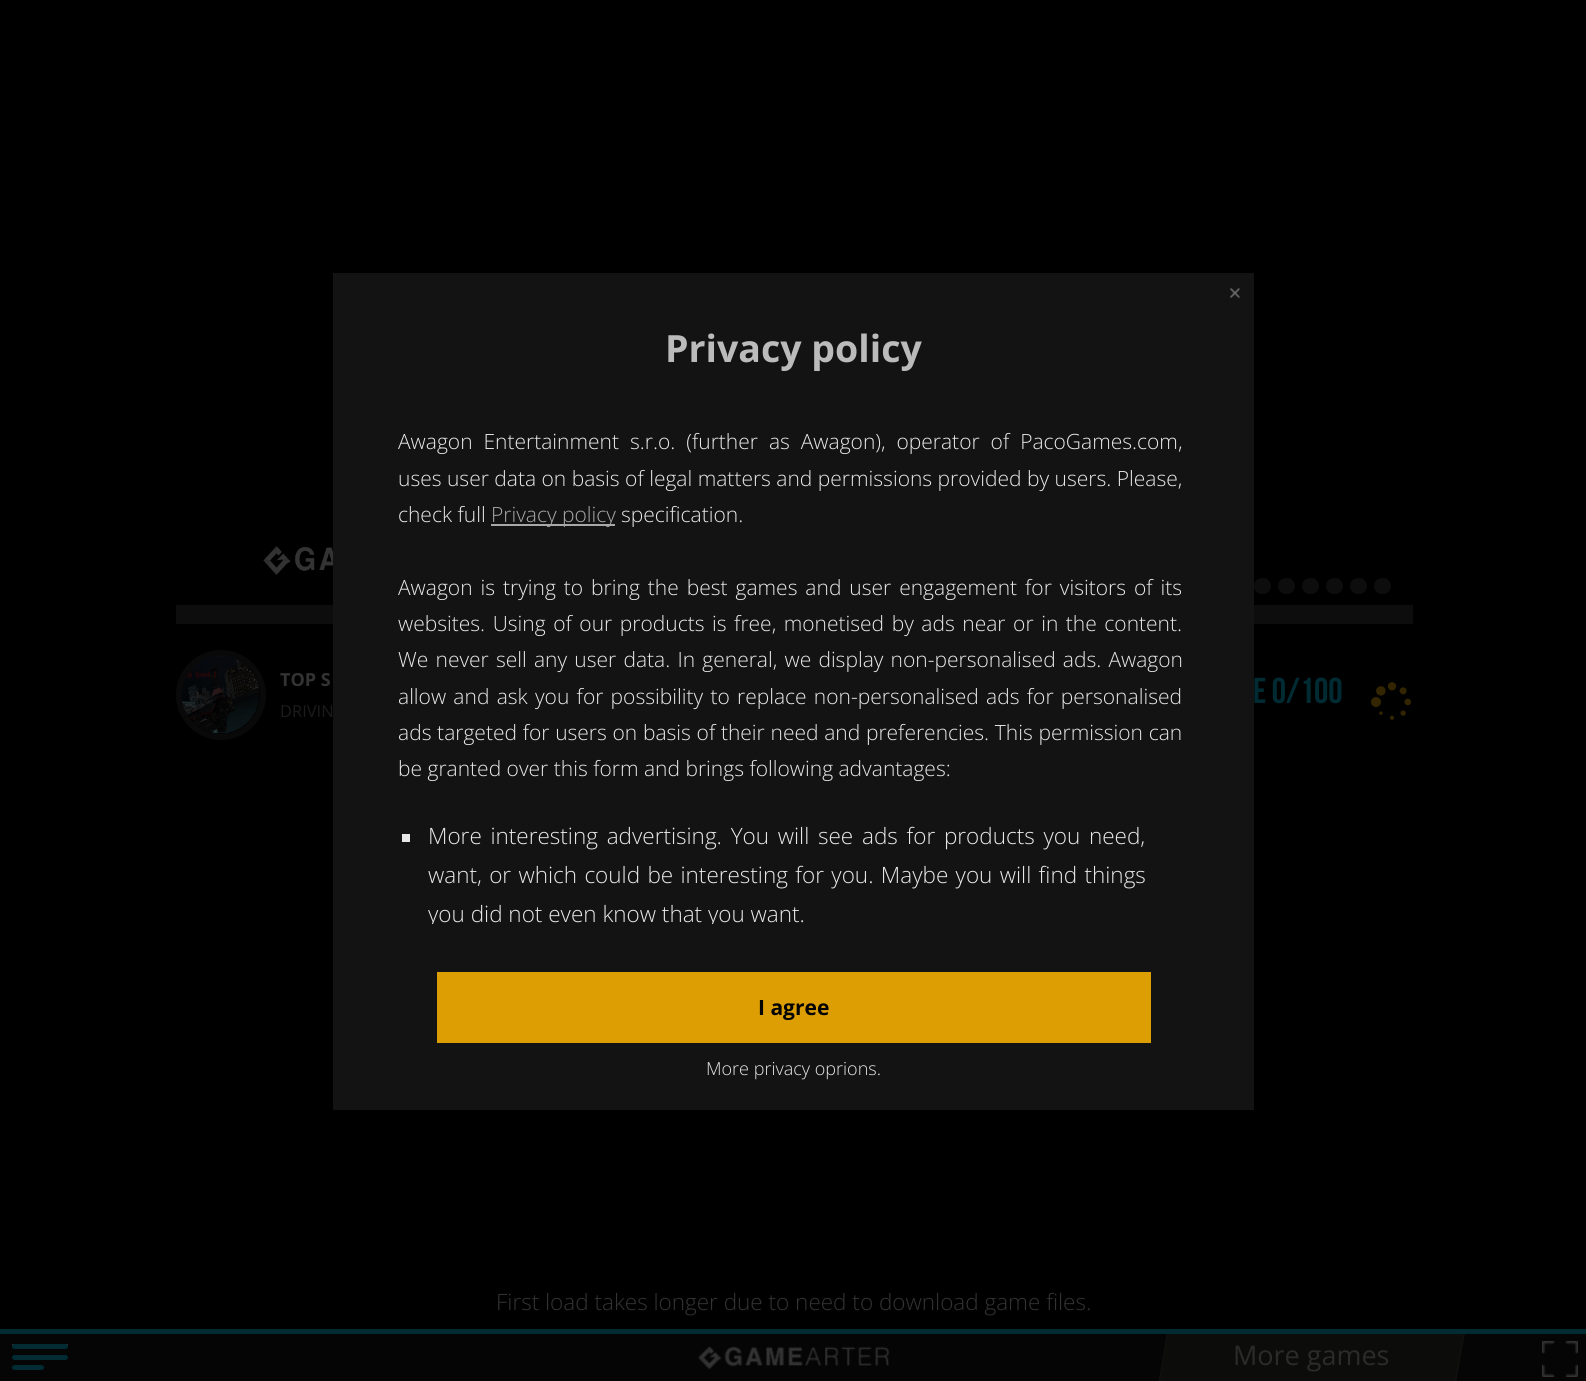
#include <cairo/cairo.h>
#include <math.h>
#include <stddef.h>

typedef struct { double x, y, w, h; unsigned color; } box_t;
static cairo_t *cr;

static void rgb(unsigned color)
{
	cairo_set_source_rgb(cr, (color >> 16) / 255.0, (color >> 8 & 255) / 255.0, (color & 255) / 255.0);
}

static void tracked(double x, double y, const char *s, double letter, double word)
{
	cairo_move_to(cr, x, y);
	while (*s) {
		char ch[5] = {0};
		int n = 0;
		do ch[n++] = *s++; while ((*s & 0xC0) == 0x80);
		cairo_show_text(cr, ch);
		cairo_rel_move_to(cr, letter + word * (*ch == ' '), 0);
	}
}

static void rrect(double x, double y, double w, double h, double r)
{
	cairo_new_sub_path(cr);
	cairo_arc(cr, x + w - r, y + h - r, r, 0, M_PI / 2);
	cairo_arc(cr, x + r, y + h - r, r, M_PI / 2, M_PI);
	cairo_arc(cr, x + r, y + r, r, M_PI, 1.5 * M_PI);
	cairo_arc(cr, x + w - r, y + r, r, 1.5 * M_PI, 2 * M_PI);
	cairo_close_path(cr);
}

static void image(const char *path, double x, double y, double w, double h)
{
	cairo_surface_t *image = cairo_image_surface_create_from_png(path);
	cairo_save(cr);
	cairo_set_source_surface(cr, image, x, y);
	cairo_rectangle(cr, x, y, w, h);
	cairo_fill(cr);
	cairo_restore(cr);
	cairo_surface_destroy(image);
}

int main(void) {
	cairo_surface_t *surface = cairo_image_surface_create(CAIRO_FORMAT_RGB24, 1586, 1381);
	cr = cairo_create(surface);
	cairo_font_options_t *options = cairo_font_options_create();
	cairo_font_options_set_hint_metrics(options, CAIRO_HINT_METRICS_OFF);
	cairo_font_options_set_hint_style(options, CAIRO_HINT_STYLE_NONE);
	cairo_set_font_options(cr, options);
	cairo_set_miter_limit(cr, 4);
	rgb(0x050505);
	cairo_paint(cr);
	{
		static const box_t items[] = {
			{0, 0, 1586, 1329, 0x000000},
			{176, 605, 1237, 19, 0x0d0d0d},
			{333, 273, 921, 837, 0x131313},
		};
		for (size_t i = 0; i < sizeof items / sizeof *items; i++) {
			rgb(items[i].color);
			cairo_rectangle(cr, items[i].x, items[i].y, items[i].w, items[i].h);
			cairo_fill(cr);
		}
	}
	image("img/1.png", 1230, 288, 10, 10);
	{
		static const box_t items[] = {
			{491, 524, 124, 2, 0xa8a8a8},
			{402, 834, 8, 8, 0xe8e8e8},
			{437, 972, 714, 71, 0xdc9e03},
		};
		for (size_t i = 0; i < sizeof items / sizeof *items; i++) {
			rgb(items[i].color);
			cairo_rectangle(cr, items[i].x, items[i].y, items[i].w, items[i].h);
			cairo_fill(cr);
		}
	}
	image("img/2.png", 263, 546, 70, 29);
	rgb(0x0d0d0d);
	rrect(1254, 578, 17, 16, 8);
	cairo_fill(cr);
	rrect(1278, 578, 17, 16, 8);
	cairo_fill(cr);
	rrect(1302, 578, 17, 16, 8);
	cairo_fill(cr);
	rrect(1326, 578, 17, 16, 8);
	cairo_fill(cr);
	rrect(1350, 578, 17, 16, 8);
	cairo_fill(cr);
	rrect(1374, 578, 17, 16, 8);
	cairo_fill(cr);
	cairo_arc(cr, 221, 695, 42, 0, 2 * M_PI);
	rgb(0x090909);
	cairo_set_line_width(cr, 6);
	cairo_stroke(cr);
	image("img/3.png", 181, 655, 79, 79);
	image("img/4.png", 1371, 682, 40, 38);
	rgb(0x303030);
	cairo_rectangle(cr, 12, 1344, 56, 3);
	cairo_fill(cr);
	rgb(0x002b33);
	rrect(12, 1344, 56, 5, 2.5);
	cairo_fill(cr);
	rrect(12, 1355, 56, 5, 2.5);
	cairo_fill(cr);
	rrect(12, 1365, 32, 5, 2.5);
	cairo_fill(cr);
	cairo_rectangle(cr, 0, 1329, 1586, 5);
	cairo_fill(cr);
	image("img/5.png", 697, 1346, 193, 24);
	rgb(0x0c0c0b);
	cairo_new_path(cr);
	cairo_move_to(cr, 1167, 1334);
	cairo_line_to(cr, 1465, 1334);
	cairo_line_to(cr, 1456, 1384);
	cairo_line_to(cr, 1158, 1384);
	cairo_close_path(cr);
	cairo_fill(cr);
	cairo_save(cr);
	cairo_rectangle(cr, 0, 1334, 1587, 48);
	cairo_clip(cr);
	cairo_new_path(cr);
	cairo_move_to(cr, 1167.5, 1334);
	cairo_line_to(cr, 1463.5, 1334);
	cairo_line_to(cr, 1455, 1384);
	cairo_line_to(cr, 1159, 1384);
	cairo_close_path(cr);
	cairo_set_source_rgba(cr, 0.067, 0.067, 0.063, 0.59);
	cairo_set_line_width(cr, 1.5);
	cairo_stroke(cr);
	cairo_restore(cr);
	image("img/6.png", 1542, 1341, 36, 36);
	cairo_select_font_face(cr, "Open Sans", CAIRO_FONT_SLANT_NORMAL, CAIRO_FONT_WEIGHT_BOLD);
	cairo_set_font_size(cr, 37.5);
	rgb(0xbbbbbb);
	cairo_move_to(cr, 665, 362);
	cairo_show_text(cr, "Privacy policy");
	cairo_select_font_face(cr, "Open Sans Light", CAIRO_FONT_SLANT_NORMAL, CAIRO_FONT_WEIGHT_NORMAL);
	cairo_set_font_size(cr, 21);
	rgb(0xe8e8e8);
	tracked(398, 449, "Awagon Entertainment s.r.o. (further as Awagon), operator of PacoGames.com,", 0, 5.5);
	cairo_move_to(cr, 398, 486);
	cairo_show_text(cr, "uses user data on basis of legal matters and permissions provided by users. Please,");
	cairo_move_to(cr, 398, 522);
	cairo_show_text(cr, "check full");
	rgb(0xa8a8a8);
	cairo_move_to(cr, 491, 522);
	cairo_show_text(cr, "Privacy policy");
	rgb(0xe8e8e8);
	cairo_move_to(cr, 621, 522);
	cairo_show_text(cr, "specification.");
	tracked(398, 595, "Awagon is trying to bring the best games and user engagement for visitors of its", 0, 2.5);
	tracked(398, 631, "websites. Using of our products is free, monetised by ads near or in the content.", 0, 2.1);
	tracked(398, 667, "We never sell any user data. In general, we display non-personalised ads. Awagon", 0, 1.75);
	tracked(398, 704, "allow and ask you for possibility to replace non-personalised ads for personalised", 0, 1.8);
	tracked(398, 740, "ads targeted for users on basis of their need and preferencies. This permission can", 0, 0.25);
	cairo_move_to(cr, 398, 776);
	cairo_show_text(cr, "be granted over this form and brings following advantages:");
	cairo_set_font_size(cr, 22.5);
	tracked(428, 844, "More interesting advertising. You will see ads for products you need,", 0, 2.9);
	tracked(428, 883, "want, or which could be interesting for you. Maybe you will find things", 0, 1.5);
	cairo_save(cr);
	cairo_rectangle(cr, 398, 425, 792, 499);
	cairo_clip(cr);
	cairo_move_to(cr, 428, 922);
	cairo_show_text(cr, "you did not even know that you want.");
	cairo_restore(cr);
	cairo_select_font_face(cr, "Open Sans", CAIRO_FONT_SLANT_NORMAL, CAIRO_FONT_WEIGHT_BOLD);
	cairo_set_font_size(cr, 21);
	rgb(0x030303);
	cairo_move_to(cr, 758, 1015);
	cairo_show_text(cr, "I agree");
	cairo_select_font_face(cr, "Open Sans Light", CAIRO_FONT_SLANT_NORMAL, CAIRO_FONT_WEIGHT_NORMAL);
	cairo_set_font_size(cr, 18);
	rgb(0xe8e8e8);
	cairo_move_to(cr, 706, 1075);
	cairo_show_text(cr, "More privacy oprions.");
	cairo_select_font_face(cr, "Open Sans", CAIRO_FONT_SLANT_NORMAL, CAIRO_FONT_WEIGHT_BOLD);
	rgb(0x333333);
	cairo_move_to(cr, 280, 686);
	cairo_show_text(cr, "TOP S");
	cairo_select_font_face(cr, "Open Sans", CAIRO_FONT_SLANT_NORMAL, CAIRO_FONT_WEIGHT_NORMAL);
	cairo_set_font_size(cr, 16.5);
	rgb(0x1b1b1b);
	cairo_move_to(cr, 280, 717);
	cairo_show_text(cr, "DRIVIN");
	cairo_select_font_face(cr, "Bebas Neue", CAIRO_FONT_SLANT_NORMAL, CAIRO_FONT_WEIGHT_NORMAL);
	cairo_set_font_size(cr, 36);
	rgb(0x002b33);
	cairo_move_to(cr, 1253, 703);
	cairo_show_text(cr, "e 0/100");
	cairo_select_font_face(cr, "Open Sans Light", CAIRO_FONT_SLANT_NORMAL, CAIRO_FONT_WEIGHT_NORMAL);
	cairo_set_font_size(cr, 22.5);
	rgb(0x333333);
	cairo_move_to(cr, 496, 1310);
	cairo_show_text(cr, "First load takes longer due to need to download game files.");
	cairo_select_font_face(cr, "Open Sans", CAIRO_FONT_SLANT_NORMAL, CAIRO_FONT_WEIGHT_NORMAL);
	cairo_set_font_size(cr, 27);
	rgb(0x2b2b2b);
	cairo_move_to(cr, 1233, 1365);
	cairo_show_text(cr, "More games");
	cairo_surface_write_to_png(surface, "page.png");
	cairo_font_options_destroy(options);
	cairo_destroy(cr);
	cairo_surface_destroy(surface);
	return 0;
}
